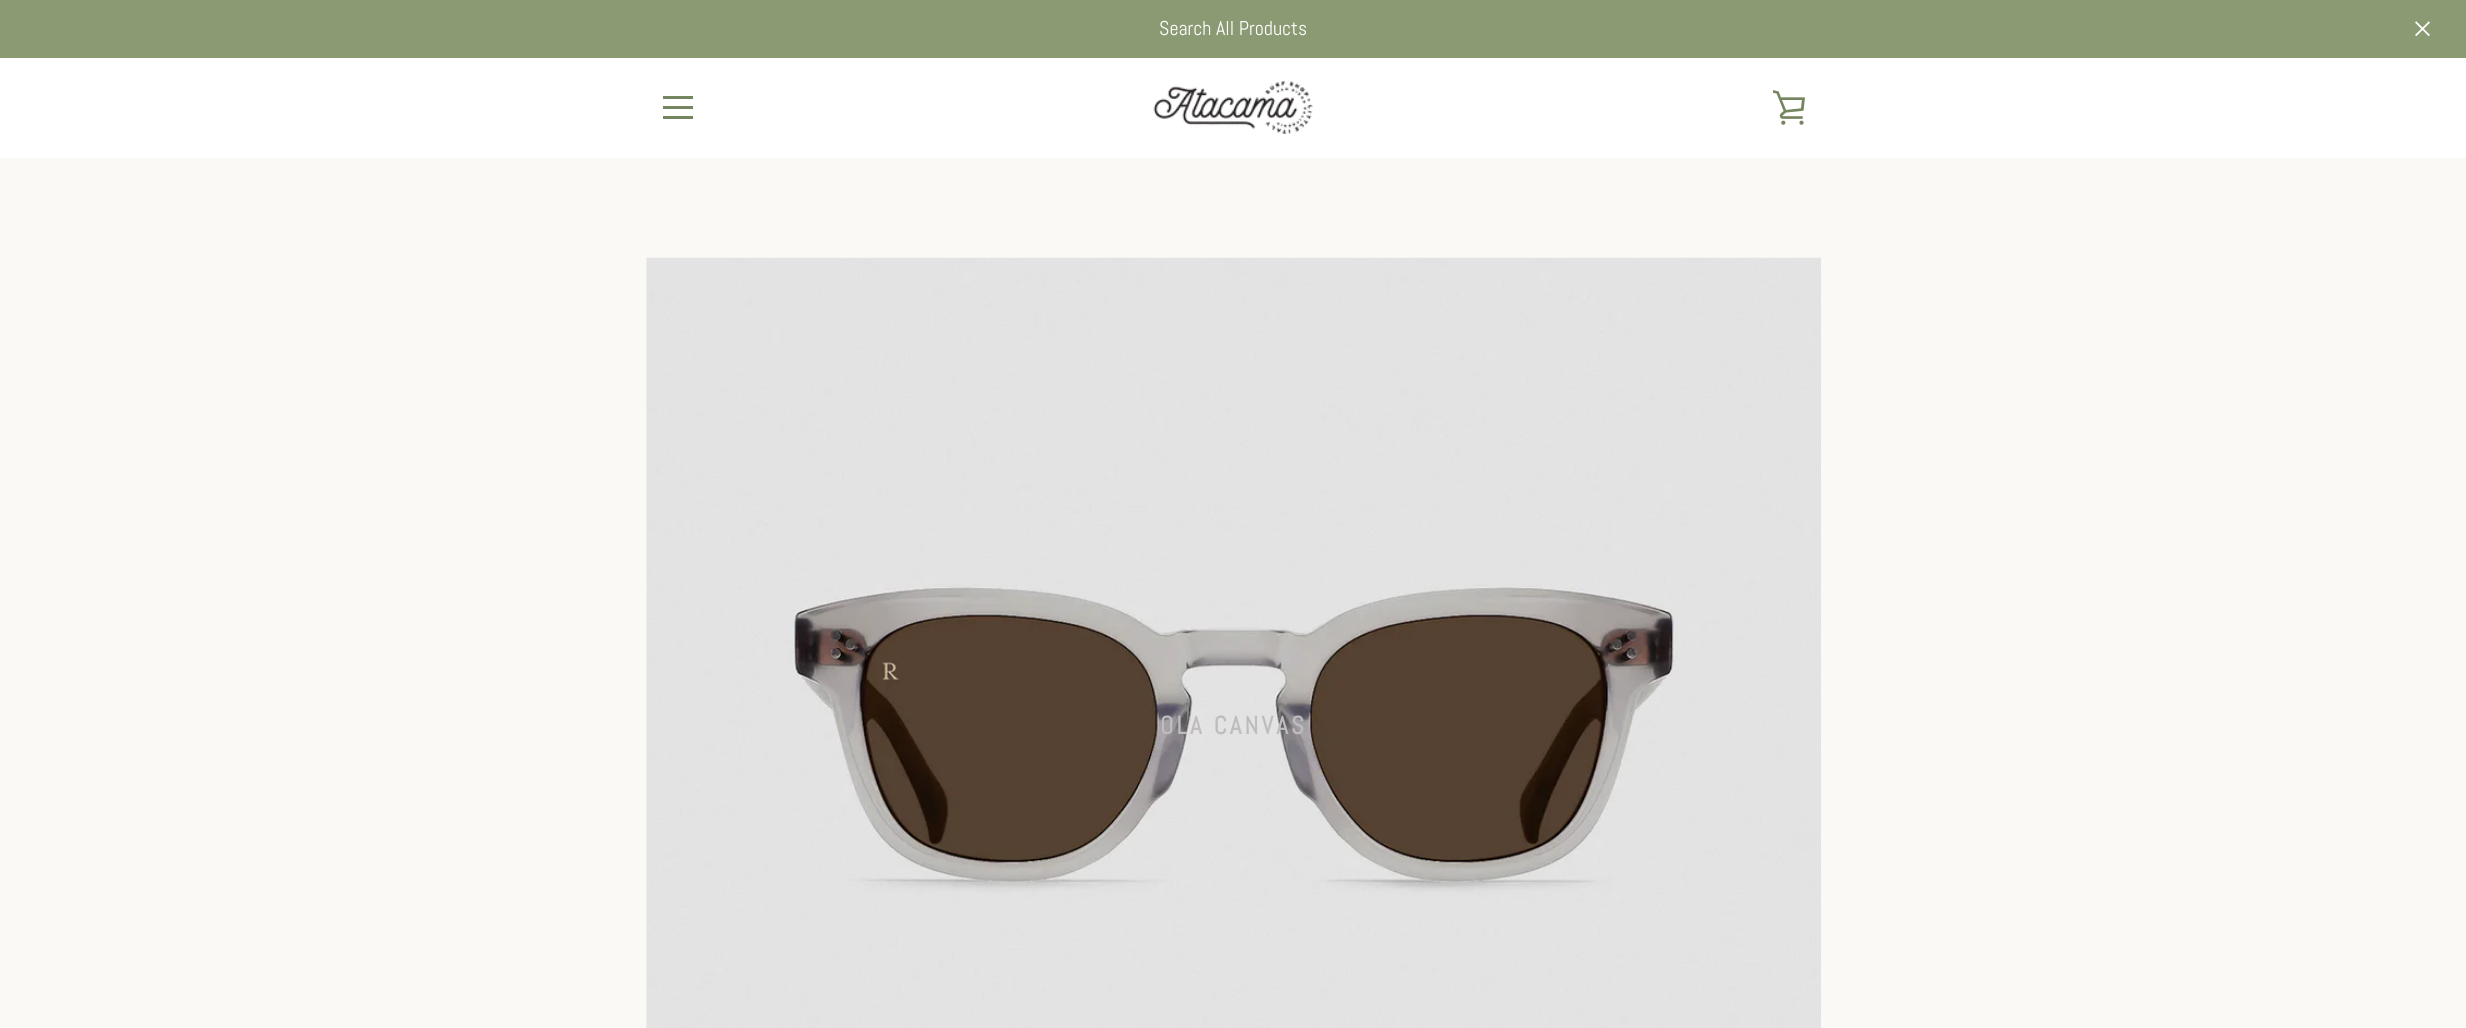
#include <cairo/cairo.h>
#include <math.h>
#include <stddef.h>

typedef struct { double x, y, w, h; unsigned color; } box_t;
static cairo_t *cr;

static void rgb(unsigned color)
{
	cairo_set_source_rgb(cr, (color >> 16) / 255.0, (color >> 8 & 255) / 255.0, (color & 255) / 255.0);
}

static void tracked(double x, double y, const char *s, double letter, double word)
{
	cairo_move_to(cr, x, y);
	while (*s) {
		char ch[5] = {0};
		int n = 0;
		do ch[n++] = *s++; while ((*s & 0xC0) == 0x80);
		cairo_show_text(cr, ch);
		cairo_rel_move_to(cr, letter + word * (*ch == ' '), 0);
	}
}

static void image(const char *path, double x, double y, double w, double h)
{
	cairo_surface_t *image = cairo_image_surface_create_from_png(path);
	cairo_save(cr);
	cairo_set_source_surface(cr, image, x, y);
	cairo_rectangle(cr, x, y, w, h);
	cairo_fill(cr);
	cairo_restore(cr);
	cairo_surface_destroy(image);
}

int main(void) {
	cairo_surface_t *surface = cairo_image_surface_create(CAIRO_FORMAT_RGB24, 2466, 1028);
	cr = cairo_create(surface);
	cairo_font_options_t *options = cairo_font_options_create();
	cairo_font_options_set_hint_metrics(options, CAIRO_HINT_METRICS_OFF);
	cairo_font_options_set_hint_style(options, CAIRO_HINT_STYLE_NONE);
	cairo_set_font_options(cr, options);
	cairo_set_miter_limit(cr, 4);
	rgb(0xfaf9f6);
	cairo_paint(cr);
	rgb(0xffffff);
	cairo_rectangle(cr, 0, 58, 2466, 100);
	cairo_fill(cr);
	rgb(0x8a9b74);
	cairo_rectangle(cr, 0, 0, 2466, 58);
	cairo_fill(cr);
	image("img/1.png", 2415, 21, 15, 15);
	image("img/2.png", 1153, 81, 160, 53);
	image("img/3.png", 1773, 90, 32, 35);
	{
		static const box_t items[] = {
			{663, 96, 30, 3, 0x758560},
			{663, 106, 30, 3, 0x758560},
			{663, 116, 30, 3, 0x758560},
		};
		for (size_t i = 0; i < sizeof items / sizeof *items; i++) {
			rgb(items[i].color);
			cairo_rectangle(cr, items[i].x, items[i].y, items[i].w, items[i].h);
			cairo_fill(cr);
		}
	}
	image("img/4.png", 646, 257, 1175, 771);
	cairo_select_font_face(cr, "Abel", CAIRO_FONT_SLANT_NORMAL, CAIRO_FONT_WEIGHT_NORMAL);
	cairo_set_font_size(cr, 20);
	rgb(0xffffff);
	cairo_move_to(cr, 1159, 35);
	cairo_show_text(cr, "Search All Products");
	cairo_select_font_face(cr, "Abel", CAIRO_FONT_SLANT_NORMAL, CAIRO_FONT_WEIGHT_BOLD);
	cairo_set_font_size(cr, 25);
	rgb(0xbebcbe);
	tracked(1160, 734, "OLA CANVAS", 3.1, 0);
	cairo_surface_write_to_png(surface, "page.png");
	cairo_font_options_destroy(options);
	cairo_destroy(cr);
	cairo_surface_destroy(surface);
	return 0;
}
